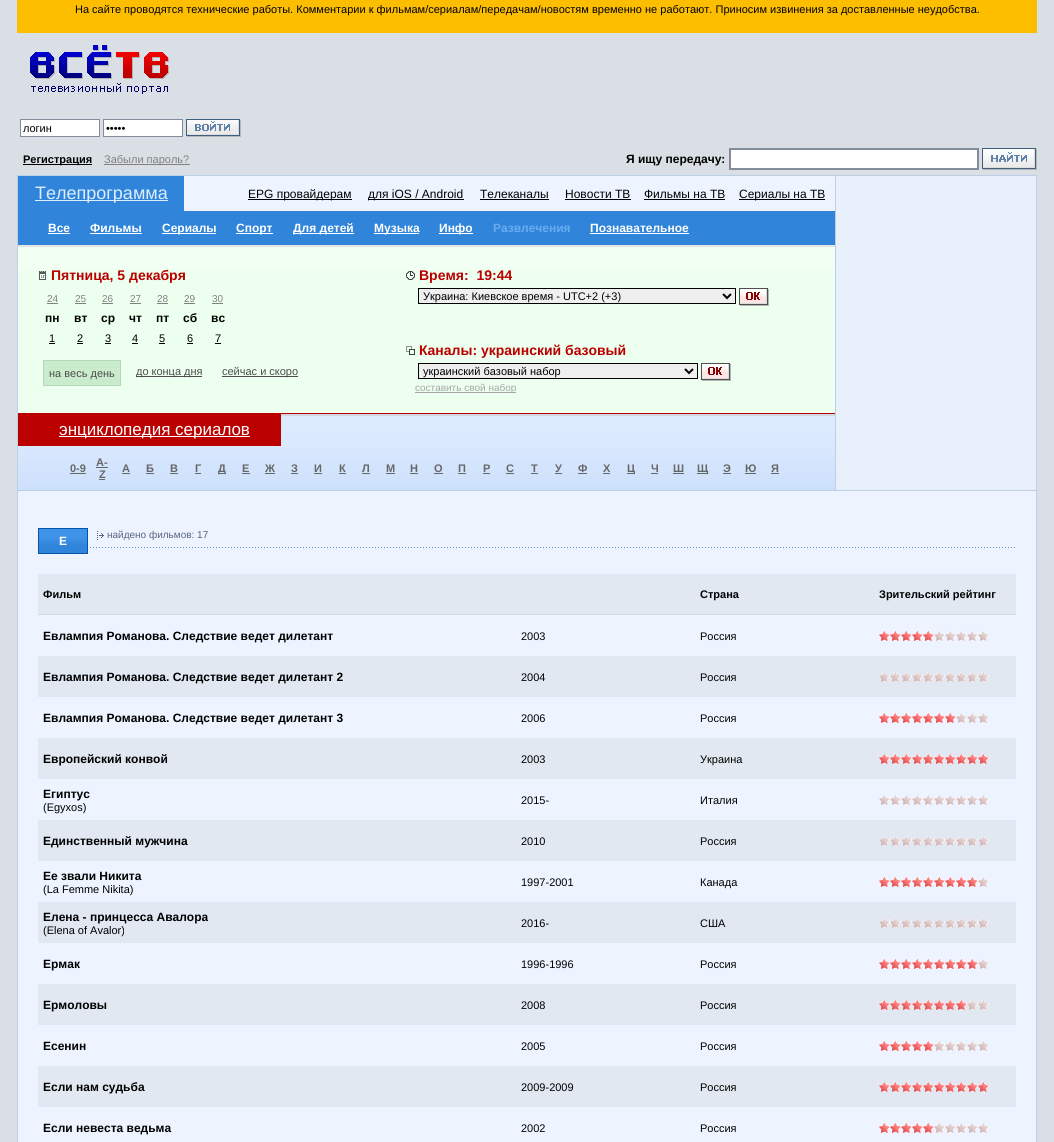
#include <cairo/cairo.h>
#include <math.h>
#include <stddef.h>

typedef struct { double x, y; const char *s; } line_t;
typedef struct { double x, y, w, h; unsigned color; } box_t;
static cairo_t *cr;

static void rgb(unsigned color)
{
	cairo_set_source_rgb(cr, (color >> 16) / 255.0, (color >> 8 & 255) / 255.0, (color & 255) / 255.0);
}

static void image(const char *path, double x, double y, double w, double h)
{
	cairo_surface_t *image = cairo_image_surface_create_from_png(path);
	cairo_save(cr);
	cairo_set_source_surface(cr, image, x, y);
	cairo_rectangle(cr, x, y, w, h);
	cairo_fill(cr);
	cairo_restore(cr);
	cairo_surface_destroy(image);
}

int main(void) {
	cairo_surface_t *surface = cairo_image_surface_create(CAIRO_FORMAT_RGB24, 1054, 1142);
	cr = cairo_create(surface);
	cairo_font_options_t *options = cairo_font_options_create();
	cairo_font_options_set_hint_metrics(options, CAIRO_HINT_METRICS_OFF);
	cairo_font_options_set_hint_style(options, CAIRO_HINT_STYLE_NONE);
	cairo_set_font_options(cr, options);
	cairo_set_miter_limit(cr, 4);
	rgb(0xdadfe5);
	cairo_paint(cr);
	rgb(0xfdbe00);
	cairo_rectangle(cr, 17, 0, 1020, 33);
	cairo_fill(cr);
	image("img/1.png", 30, 45, 139, 49);
	rgb(0xffffff);
	cairo_rectangle(cr, 20.5, 119.5, 79, 17);
	cairo_fill_preserve(cr);
	rgb(0x848c9c);
	cairo_set_line_width(cr, 1);
	cairo_stroke(cr);
	rgb(0xffffff);
	cairo_rectangle(cr, 103.5, 119.5, 79, 17);
	cairo_fill_preserve(cr);
	rgb(0x848c9c);
	cairo_stroke(cr);
	image("img/2.png", 186, 119, 55, 18);
	rgb(0x000000);
	cairo_rectangle(cr, 23, 164, 69, 1);
	cairo_fill(cr);
	rgb(0x808080);
	cairo_rectangle(cr, 104, 164, 86, 1);
	cairo_fill(cr);
	rgb(0xffffff);
	cairo_rectangle(cr, 730, 149, 248, 20);
	cairo_fill_preserve(cr);
	rgb(0x848c9c);
	cairo_set_line_width(cr, 2);
	cairo_stroke(cr);
	image("img/3.png", 982, 148, 55, 22);
	{
		static const box_t items[] = {
			{17, 175, 1020, 1, 0xbecfe5},
			{1036, 176, 1, 966, 0xbecfe5},
			{17, 176, 1, 966, 0xbecfe5},
			{18, 490, 1018, 1, 0xbecfe5},
			{18, 176, 166, 35, 0x3084d9},
			{35, 200, 133, 1, 0xdeeeff},
			{184, 176, 651, 35, 0xedf4ff},
			{248, 199, 104, 1, 0x000000},
			{368, 199, 96, 1, 0x000000},
			{480, 199, 69, 1, 0x000000},
			{565, 199, 66, 1, 0x000000},
			{644, 199, 81, 1, 0x000000},
			{739, 199, 86, 1, 0x000000},
			{18, 211, 817, 34, 0x3084d9},
			{48, 233, 22, 1, 0xffffff},
			{90, 233, 52, 1, 0xffffff},
			{162, 233, 54, 1, 0xffffff},
			{236, 233, 37, 1, 0xffffff},
			{293, 233, 61, 1, 0xffffff},
			{374, 233, 45, 1, 0xffffff},
			{439, 233, 34, 1, 0xffffff},
			{590, 233, 99, 1, 0xffffff},
			{18, 270, 817, 143, 0xedffee},
			{18, 247, 817, 23, 0xf2fff3},
			{18, 245, 817, 2, 0xdfe5df},
		};
		for (size_t i = 0; i < sizeof items / sizeof *items; i++) {
			rgb(items[i].color);
			cairo_rectangle(cr, items[i].x, items[i].y, items[i].w, items[i].h);
			cairo_fill(cr);
		}
	}
	image("img/4.png", 39, 271, 7, 9);
	{
		static const box_t items[] = {
			{47, 303, 11, 1, 0x808080},
			{75, 303, 11, 1, 0x808080},
			{102, 303, 11, 1, 0x808080},
			{130, 303, 11, 1, 0x808080},
			{157, 303, 11, 1, 0x808080},
			{184, 303, 11, 1, 0x808080},
			{212, 303, 11, 1, 0x808080},
			{49, 343, 6, 1, 0x000000},
			{77, 343, 6, 1, 0x000000},
			{105, 343, 6, 1, 0x000000},
			{132, 343, 6, 1, 0x000000},
			{159, 343, 6, 1, 0x000000},
			{187, 343, 6, 1, 0x000000},
			{215, 343, 6, 1, 0x000000},
		};
		for (size_t i = 0; i < sizeof items / sizeof *items; i++) {
			rgb(items[i].color);
			cairo_rectangle(cr, items[i].x, items[i].y, items[i].w, items[i].h);
			cairo_fill(cr);
		}
	}
	rgb(0xcaeccc);
	cairo_rectangle(cr, 43.5, 360.5, 77, 25);
	cairo_fill_preserve(cr);
	rgb(0xb4d9b7);
	cairo_set_line_width(cr, 1);
	cairo_stroke(cr);
	rgb(0x4d4d4d);
	cairo_rectangle(cr, 136, 376, 66, 1);
	cairo_fill(cr);
	cairo_rectangle(cr, 222, 376, 76, 1);
	cairo_fill(cr);
	image("img/5.png", 406, 271, 9, 9);
	rgb(0xefefef);
	cairo_rectangle(cr, 418.5, 288.5, 317, 15);
	cairo_fill_preserve(cr);
	rgb(0x000000);
	cairo_stroke(cr);
	cairo_new_path(cr);
	cairo_move_to(cr, 723, 294);
	cairo_line_to(cr, 727, 298);
	cairo_line_to(cr, 731, 294);
	cairo_set_line_width(cr, 2);
	cairo_stroke(cr);
	image("img/6.png", 739, 288, 30, 18);
	image("img/7.png", 406, 346, 9, 9);
	rgb(0xefefef);
	cairo_rectangle(cr, 418.5, 363.5, 279, 15);
	cairo_fill_preserve(cr);
	rgb(0x000000);
	cairo_set_line_width(cr, 1);
	cairo_stroke(cr);
	cairo_new_path(cr);
	cairo_move_to(cr, 685, 369);
	cairo_line_to(cr, 689, 373);
	cairo_line_to(cr, 693, 369);
	cairo_set_line_width(cr, 2);
	cairo_stroke(cr);
	image("img/6.png", 701, 363, 30, 18);
	rgb(0xa6a6a6);
	cairo_rectangle(cr, 415, 392, 101, 1);
	cairo_fill(cr);
	rgb(0xbb0000);
	cairo_rectangle(cr, 18, 413, 817, 1);
	cairo_fill(cr);
	image("img/8.png", 18, 416, 817, 74);
	{
		static const box_t items[] = {
			{18, 414, 263, 32, 0xbb0000},
			{281, 414, 554, 2, 0xcfd7e1},
			{59, 436, 191, 1, 0xffffff},
			{70, 473, 16, 1, 0x666666},
			{96, 467, 12, 1, 0x666666},
			{99, 479, 6, 1, 0x666666},
			{122, 473, 8, 1, 0x666666},
			{146, 473, 8, 1, 0x666666},
			{170, 473, 8, 1, 0x666666},
			{195, 473, 6, 1, 0x666666},
			{218, 473, 8, 1, 0x666666},
			{242, 473, 8, 1, 0x666666},
			{265, 473, 10, 1, 0x666666},
			{291, 473, 7, 1, 0x666666},
			{314, 473, 8, 1, 0x666666},
			{339, 473, 7, 1, 0x666666},
			{362, 473, 8, 1, 0x666666},
			{386, 473, 9, 1, 0x666666},
			{410, 473, 8, 1, 0x666666},
			{434, 473, 9, 1, 0x666666},
			{458, 473, 8, 1, 0x666666},
			{483, 473, 7, 1, 0x666666},
			{506, 473, 8, 1, 0x666666},
			{531, 473, 7, 1, 0x666666},
			{555, 473, 7, 1, 0x666666},
			{578, 473, 9, 1, 0x666666},
			{603, 473, 7, 1, 0x666666},
			{627, 473, 8, 1, 0x666666},
			{651, 473, 7, 1, 0x666666},
			{673, 473, 11, 1, 0x666666},
			{697, 473, 11, 1, 0x666666},
			{723, 473, 8, 1, 0x666666},
			{745, 473, 11, 1, 0x666666},
			{771, 473, 8, 1, 0x666666},
			{836, 176, 200, 314, 0xe8f0fc},
			{835, 176, 1, 315, 0xbecfe5},
			{18, 491, 1018, 651, 0xedf4ff},
		};
		for (size_t i = 0; i < sizeof items / sizeof *items; i++) {
			rgb(items[i].color);
			cairo_rectangle(cr, items[i].x, items[i].y, items[i].w, items[i].h);
			cairo_fill(cr);
		}
	}
	image("img/9.png", 39, 529, 48, 24);
	cairo_rectangle(cr, 38.5, 528.5, 49, 25);
	rgb(0x0054aa);
	cairo_set_line_width(cr, 1);
	cairo_stroke(cr);
	image("img/10.png", 90, 547, 925, 1);
	image("img/11.png", 97, 531, 7, 9);
	rgb(0xe1e8f2);
	cairo_rectangle(cr, 38, 574, 978, 40);
	cairo_fill(cr);
	rgb(0xd5dce5);
	cairo_rectangle(cr, 38, 614, 978, 1);
	cairo_fill(cr);
	image("img/12.png", 879, 631, 11, 10);
	image("img/12.png", 890, 631, 11, 10);
	image("img/12.png", 901, 631, 11, 10);
	image("img/12.png", 912, 631, 11, 10);
	image("img/12.png", 923, 631, 11, 10);
	image("img/13.png", 934, 631, 11, 10);
	image("img/13.png", 945, 631, 11, 10);
	image("img/13.png", 956, 631, 11, 10);
	image("img/13.png", 967, 631, 11, 10);
	image("img/13.png", 978, 631, 11, 10);
	rgb(0xe1e8f2);
	cairo_rectangle(cr, 38, 656, 978, 41);
	cairo_fill(cr);
	image("img/14.png", 879, 672, 11, 10);
	image("img/14.png", 890, 672, 11, 10);
	image("img/14.png", 901, 672, 11, 10);
	image("img/14.png", 912, 672, 11, 10);
	image("img/14.png", 923, 672, 11, 10);
	image("img/14.png", 934, 672, 11, 10);
	image("img/14.png", 945, 672, 11, 10);
	image("img/14.png", 956, 672, 11, 10);
	image("img/14.png", 967, 672, 11, 10);
	image("img/14.png", 978, 672, 11, 10);
	image("img/12.png", 879, 713, 11, 10);
	image("img/12.png", 890, 713, 11, 10);
	image("img/12.png", 901, 713, 11, 10);
	image("img/12.png", 912, 713, 11, 10);
	image("img/12.png", 923, 713, 11, 10);
	image("img/12.png", 934, 713, 11, 10);
	image("img/12.png", 945, 713, 11, 10);
	image("img/13.png", 956, 713, 11, 10);
	image("img/13.png", 967, 713, 11, 10);
	image("img/13.png", 978, 713, 11, 10);
	cairo_rectangle(cr, 38, 738, 978, 41);
	cairo_fill(cr);
	image("img/15.png", 879, 754, 11, 10);
	image("img/15.png", 890, 754, 11, 10);
	image("img/15.png", 901, 754, 11, 10);
	image("img/15.png", 912, 754, 11, 10);
	image("img/15.png", 923, 754, 11, 10);
	image("img/15.png", 934, 754, 11, 10);
	image("img/15.png", 945, 754, 11, 10);
	image("img/15.png", 956, 754, 11, 10);
	image("img/15.png", 967, 754, 11, 10);
	image("img/15.png", 978, 754, 11, 10);
	image("img/13.png", 879, 795, 11, 10);
	image("img/13.png", 890, 795, 11, 10);
	image("img/13.png", 901, 795, 11, 10);
	image("img/13.png", 912, 795, 11, 10);
	image("img/13.png", 923, 795, 11, 10);
	image("img/13.png", 934, 795, 11, 10);
	image("img/13.png", 945, 795, 11, 10);
	image("img/13.png", 956, 795, 11, 10);
	image("img/13.png", 967, 795, 11, 10);
	image("img/13.png", 978, 795, 11, 10);
	cairo_rectangle(cr, 38, 820, 978, 41);
	cairo_fill(cr);
	image("img/14.png", 879, 836, 11, 10);
	image("img/14.png", 890, 836, 11, 10);
	image("img/14.png", 901, 836, 11, 10);
	image("img/14.png", 912, 836, 11, 10);
	image("img/14.png", 923, 836, 11, 10);
	image("img/14.png", 934, 836, 11, 10);
	image("img/14.png", 945, 836, 11, 10);
	image("img/14.png", 956, 836, 11, 10);
	image("img/14.png", 967, 836, 11, 10);
	image("img/14.png", 978, 836, 11, 10);
	image("img/12.png", 879, 877, 11, 10);
	image("img/12.png", 890, 877, 11, 10);
	image("img/12.png", 901, 877, 11, 10);
	image("img/12.png", 912, 877, 11, 10);
	image("img/12.png", 923, 877, 11, 10);
	image("img/12.png", 934, 877, 11, 10);
	image("img/12.png", 945, 877, 11, 10);
	image("img/12.png", 956, 877, 11, 10);
	image("img/12.png", 967, 877, 11, 10);
	image("img/13.png", 978, 877, 11, 10);
	cairo_rectangle(cr, 38, 902, 978, 41);
	cairo_fill(cr);
	image("img/14.png", 879, 918, 11, 10);
	image("img/14.png", 890, 918, 11, 10);
	image("img/14.png", 901, 918, 11, 10);
	image("img/14.png", 912, 918, 11, 10);
	image("img/14.png", 923, 918, 11, 10);
	image("img/14.png", 934, 918, 11, 10);
	image("img/14.png", 945, 918, 11, 10);
	image("img/14.png", 956, 918, 11, 10);
	image("img/14.png", 967, 918, 11, 10);
	image("img/14.png", 978, 918, 11, 10);
	image("img/12.png", 879, 959, 11, 10);
	image("img/12.png", 890, 959, 11, 10);
	image("img/12.png", 901, 959, 11, 10);
	image("img/12.png", 912, 959, 11, 10);
	image("img/12.png", 923, 959, 11, 10);
	image("img/12.png", 934, 959, 11, 10);
	image("img/12.png", 945, 959, 11, 10);
	image("img/12.png", 956, 959, 11, 10);
	image("img/12.png", 967, 959, 11, 10);
	image("img/13.png", 978, 959, 11, 10);
	cairo_rectangle(cr, 38, 984, 978, 41);
	cairo_fill(cr);
	image("img/15.png", 879, 1000, 11, 10);
	image("img/15.png", 890, 1000, 11, 10);
	image("img/15.png", 901, 1000, 11, 10);
	image("img/15.png", 912, 1000, 11, 10);
	image("img/15.png", 923, 1000, 11, 10);
	image("img/15.png", 934, 1000, 11, 10);
	image("img/15.png", 945, 1000, 11, 10);
	image("img/15.png", 956, 1000, 11, 10);
	image("img/14.png", 967, 1000, 11, 10);
	image("img/14.png", 978, 1000, 11, 10);
	image("img/12.png", 879, 1041, 11, 10);
	image("img/12.png", 890, 1041, 11, 10);
	image("img/12.png", 901, 1041, 11, 10);
	image("img/12.png", 912, 1041, 11, 10);
	image("img/12.png", 923, 1041, 11, 10);
	image("img/13.png", 934, 1041, 11, 10);
	image("img/13.png", 945, 1041, 11, 10);
	image("img/13.png", 956, 1041, 11, 10);
	image("img/13.png", 967, 1041, 11, 10);
	image("img/13.png", 978, 1041, 11, 10);
	cairo_rectangle(cr, 38, 1066, 978, 41);
	cairo_fill(cr);
	image("img/15.png", 879, 1082, 11, 10);
	image("img/15.png", 890, 1082, 11, 10);
	image("img/15.png", 901, 1082, 11, 10);
	image("img/15.png", 912, 1082, 11, 10);
	image("img/15.png", 923, 1082, 11, 10);
	image("img/15.png", 934, 1082, 11, 10);
	image("img/15.png", 945, 1082, 11, 10);
	image("img/15.png", 956, 1082, 11, 10);
	image("img/15.png", 967, 1082, 11, 10);
	image("img/15.png", 978, 1082, 11, 10);
	image("img/12.png", 879, 1123, 11, 10);
	image("img/12.png", 890, 1123, 11, 10);
	image("img/12.png", 901, 1123, 11, 10);
	image("img/12.png", 912, 1123, 11, 10);
	image("img/12.png", 923, 1123, 11, 10);
	image("img/13.png", 934, 1123, 11, 10);
	image("img/13.png", 945, 1123, 11, 10);
	image("img/13.png", 956, 1123, 11, 10);
	image("img/13.png", 967, 1123, 11, 10);
	image("img/13.png", 978, 1123, 11, 10);
	cairo_select_font_face(cr, "Liberation Sans", CAIRO_FONT_SLANT_NORMAL, CAIRO_FONT_WEIGHT_NORMAL);
	cairo_set_font_size(cr, 11);
	rgb(0x000000);
	{
		static const line_t items[] = {
			{75, 13, "На сайте проводятся технические работы. Комментарии к фильмам/сериалам/передачам/новостям временно не работают. Приносим извинения за доставленные неудобства."},
			{23, 132, "логин"},
			{106, 132, "•••••"},
		};
		for (size_t i = 0; i < sizeof items / sizeof *items; i++) {
			cairo_move_to(cr, items[i].x, items[i].y);
			cairo_show_text(cr, items[i].s);
		}
	}
	cairo_select_font_face(cr, "Liberation Sans", CAIRO_FONT_SLANT_NORMAL, CAIRO_FONT_WEIGHT_BOLD);
	cairo_move_to(cr, 23, 163);
	cairo_show_text(cr, "Регистрация");
	cairo_select_font_face(cr, "Liberation Sans", CAIRO_FONT_SLANT_NORMAL, CAIRO_FONT_WEIGHT_NORMAL);
	rgb(0x808080);
	cairo_move_to(cr, 104, 163);
	cairo_show_text(cr, "Забыли пароль?");
	cairo_select_font_face(cr, "Liberation Sans", CAIRO_FONT_SLANT_NORMAL, CAIRO_FONT_WEIGHT_BOLD);
	cairo_set_font_size(cr, 12);
	rgb(0x000000);
	cairo_move_to(cr, 626, 163);
	cairo_show_text(cr, "Я ищу передачу:");
	cairo_select_font_face(cr, "Liberation Sans", CAIRO_FONT_SLANT_NORMAL, CAIRO_FONT_WEIGHT_NORMAL);
	cairo_set_font_size(cr, 18);
	rgb(0xdeeeff);
	cairo_move_to(cr, 35, 199);
	cairo_show_text(cr, "Телепрограмма");
	cairo_set_font_size(cr, 12);
	rgb(0x000000);
	{
		static const line_t items[] = {
			{248, 198, "EPG провайдерам"},
			{368, 198, "для iOS / Android"},
			{480, 198, "Телеканалы"},
			{565, 198, "Новости ТВ"},
			{644, 198, "Фильмы на ТВ"},
			{739, 198, "Сериалы на ТВ"},
		};
		for (size_t i = 0; i < sizeof items / sizeof *items; i++) {
			cairo_move_to(cr, items[i].x, items[i].y);
			cairo_show_text(cr, items[i].s);
		}
	}
	cairo_select_font_face(cr, "Liberation Sans", CAIRO_FONT_SLANT_NORMAL, CAIRO_FONT_WEIGHT_BOLD);
	rgb(0xffffff);
	{
		static const line_t items[] = {
			{48, 232, "Все"},
			{90, 232, "Фильмы"},
			{162, 232, "Сериалы"},
			{236, 232, "Спорт"},
			{293, 232, "Для детей"},
			{374, 232, "Музыка"},
			{439, 232, "Инфо"},
		};
		for (size_t i = 0; i < sizeof items / sizeof *items; i++) {
			cairo_move_to(cr, items[i].x, items[i].y);
			cairo_show_text(cr, items[i].s);
		}
	}
	rgb(0x68acf0);
	cairo_move_to(cr, 493, 232);
	cairo_show_text(cr, "Развлечения");
	rgb(0xffffff);
	cairo_move_to(cr, 590, 232);
	cairo_show_text(cr, "Познавательное");
	cairo_set_font_size(cr, 14);
	rgb(0xbb0000);
	cairo_move_to(cr, 51, 280);
	cairo_show_text(cr, "Пятница, 5 декабря");
	cairo_select_font_face(cr, "Liberation Sans", CAIRO_FONT_SLANT_NORMAL, CAIRO_FONT_WEIGHT_NORMAL);
	cairo_set_font_size(cr, 10);
	rgb(0x808080);
	{
		static const line_t items[] = {
			{47, 302, "24"},
			{75, 302, "25"},
			{102, 302, "26"},
			{130, 302, "27"},
			{157, 302, "28"},
			{184, 302, "29"},
			{212, 302, "30"},
		};
		for (size_t i = 0; i < sizeof items / sizeof *items; i++) {
			cairo_move_to(cr, items[i].x, items[i].y);
			cairo_show_text(cr, items[i].s);
		}
	}
	cairo_select_font_face(cr, "Liberation Sans", CAIRO_FONT_SLANT_NORMAL, CAIRO_FONT_WEIGHT_BOLD);
	cairo_set_font_size(cr, 12);
	rgb(0x000000);
	{
		static const line_t items[] = {
			{45, 322, "пн"},
			{74, 322, "вт"},
			{101, 322, "ср"},
			{129, 322, "чт"},
			{156, 322, "пт"},
			{183, 322, "сб"},
			{211, 322, "вс"},
		};
		for (size_t i = 0; i < sizeof items / sizeof *items; i++) {
			cairo_move_to(cr, items[i].x, items[i].y);
			cairo_show_text(cr, items[i].s);
		}
	}
	cairo_select_font_face(cr, "Liberation Sans", CAIRO_FONT_SLANT_NORMAL, CAIRO_FONT_WEIGHT_NORMAL);
	cairo_set_font_size(cr, 11);
	{
		static const line_t items[] = {
			{49, 342, "1"},
			{77, 342, "2"},
			{105, 342, "3"},
			{132, 342, "4"},
			{159, 342, "5"},
			{187, 342, "6"},
			{215, 342, "7"},
		};
		for (size_t i = 0; i < sizeof items / sizeof *items; i++) {
			cairo_move_to(cr, items[i].x, items[i].y);
			cairo_show_text(cr, items[i].s);
		}
	}
	rgb(0x4d4d4d);
	{
		static const line_t items[] = {
			{49, 377, "на весь день"},
			{136, 375, "до конца дня"},
			{222, 375, "сейчас и скоро"},
		};
		for (size_t i = 0; i < sizeof items / sizeof *items; i++) {
			cairo_move_to(cr, items[i].x, items[i].y);
			cairo_show_text(cr, items[i].s);
		}
	}
	cairo_select_font_face(cr, "Liberation Sans", CAIRO_FONT_SLANT_NORMAL, CAIRO_FONT_WEIGHT_BOLD);
	cairo_set_font_size(cr, 14);
	rgb(0xbb0000);
	cairo_move_to(cr, 419, 280);
	cairo_show_text(cr, "Время:  19:44");
	cairo_select_font_face(cr, "Liberation Sans", CAIRO_FONT_SLANT_NORMAL, CAIRO_FONT_WEIGHT_NORMAL);
	cairo_set_font_size(cr, 11);
	rgb(0x000000);
	cairo_move_to(cr, 423, 300);
	cairo_show_text(cr, "Украина: Киевское время - UTC+2 (+3)");
	cairo_select_font_face(cr, "Liberation Sans", CAIRO_FONT_SLANT_NORMAL, CAIRO_FONT_WEIGHT_BOLD);
	cairo_set_font_size(cr, 14);
	rgb(0xbb0000);
	cairo_move_to(cr, 419, 355);
	cairo_show_text(cr, "Каналы: украинский базовый");
	cairo_select_font_face(cr, "Liberation Sans", CAIRO_FONT_SLANT_NORMAL, CAIRO_FONT_WEIGHT_NORMAL);
	cairo_set_font_size(cr, 11);
	rgb(0x000000);
	cairo_move_to(cr, 423, 375);
	cairo_show_text(cr, "украинский базовый набор");
	cairo_set_font_size(cr, 10);
	rgb(0xa6a6a6);
	cairo_move_to(cr, 415, 391);
	cairo_show_text(cr, "составить свой набор");
	cairo_set_font_size(cr, 17);
	rgb(0xffffff);
	cairo_move_to(cr, 59, 435);
	cairo_show_text(cr, "энциклопедия сериалов");
	cairo_select_font_face(cr, "Liberation Sans", CAIRO_FONT_SLANT_NORMAL, CAIRO_FONT_WEIGHT_BOLD);
	cairo_set_font_size(cr, 11);
	rgb(0x666666);
	{
		static const line_t items[] = {
			{70, 472, "0-9"},
			{96, 466, "A-"},
			{99, 478, "Z"},
			{122, 472, "А"},
			{146, 472, "Б"},
			{170, 472, "В"},
			{195, 472, "Г"},
			{218, 472, "Д"},
			{242, 472, "Е"},
			{265, 472, "Ж"},
			{291, 472, "З"},
			{314, 472, "И"},
			{339, 472, "К"},
			{362, 472, "Л"},
			{386, 472, "М"},
			{410, 472, "Н"},
			{434, 472, "О"},
			{458, 472, "П"},
			{483, 472, "Р"},
			{506, 472, "С"},
			{531, 472, "Т"},
			{555, 472, "У"},
			{578, 472, "Ф"},
			{603, 472, "Х"},
			{627, 472, "Ц"},
			{651, 472, "Ч"},
			{673, 472, "Ш"},
			{697, 472, "Щ"},
			{723, 472, "Э"},
			{745, 472, "Ю"},
			{771, 472, "Я"},
		};
		for (size_t i = 0; i < sizeof items / sizeof *items; i++) {
			cairo_move_to(cr, items[i].x, items[i].y);
			cairo_show_text(cr, items[i].s);
		}
	}
	cairo_set_font_size(cr, 12);
	rgb(0xffffff);
	cairo_move_to(cr, 59, 545);
	cairo_show_text(cr, "Е");
	cairo_select_font_face(cr, "Liberation Sans", CAIRO_FONT_SLANT_NORMAL, CAIRO_FONT_WEIGHT_NORMAL);
	cairo_set_font_size(cr, 10);
	rgb(0x596680);
	cairo_move_to(cr, 107, 538);
	cairo_show_text(cr, "найдено фильмов: 17");
	cairo_select_font_face(cr, "Liberation Sans", CAIRO_FONT_SLANT_NORMAL, CAIRO_FONT_WEIGHT_BOLD);
	cairo_set_font_size(cr, 11);
	rgb(0x000000);
	{
		static const line_t items[] = {
			{43, 598, "Фильм"},
			{700, 598, "Страна"},
			{879, 598, "Зрительский рейтинг"},
		};
		for (size_t i = 0; i < sizeof items / sizeof *items; i++) {
			cairo_move_to(cr, items[i].x, items[i].y);
			cairo_show_text(cr, items[i].s);
		}
	}
	cairo_set_font_size(cr, 12);
	cairo_move_to(cr, 43, 640);
	cairo_show_text(cr, "Евлампия Романова. Следствие ведет дилетант");
	cairo_select_font_face(cr, "Liberation Sans", CAIRO_FONT_SLANT_NORMAL, CAIRO_FONT_WEIGHT_NORMAL);
	cairo_set_font_size(cr, 11);
	cairo_move_to(cr, 521, 640);
	cairo_show_text(cr, "2003");
	cairo_move_to(cr, 700, 640);
	cairo_show_text(cr, "Россия");
	cairo_select_font_face(cr, "Liberation Sans", CAIRO_FONT_SLANT_NORMAL, CAIRO_FONT_WEIGHT_BOLD);
	cairo_set_font_size(cr, 12);
	cairo_move_to(cr, 43, 681);
	cairo_show_text(cr, "Евлампия Романова. Следствие ведет дилетант 2");
	cairo_select_font_face(cr, "Liberation Sans", CAIRO_FONT_SLANT_NORMAL, CAIRO_FONT_WEIGHT_NORMAL);
	cairo_set_font_size(cr, 11);
	cairo_move_to(cr, 521, 681);
	cairo_show_text(cr, "2004");
	cairo_move_to(cr, 700, 681);
	cairo_show_text(cr, "Россия");
	cairo_select_font_face(cr, "Liberation Sans", CAIRO_FONT_SLANT_NORMAL, CAIRO_FONT_WEIGHT_BOLD);
	cairo_set_font_size(cr, 12);
	cairo_move_to(cr, 43, 722);
	cairo_show_text(cr, "Евлампия Романова. Следствие ведет дилетант 3");
	cairo_select_font_face(cr, "Liberation Sans", CAIRO_FONT_SLANT_NORMAL, CAIRO_FONT_WEIGHT_NORMAL);
	cairo_set_font_size(cr, 11);
	cairo_move_to(cr, 521, 722);
	cairo_show_text(cr, "2006");
	cairo_move_to(cr, 700, 722);
	cairo_show_text(cr, "Россия");
	cairo_select_font_face(cr, "Liberation Sans", CAIRO_FONT_SLANT_NORMAL, CAIRO_FONT_WEIGHT_BOLD);
	cairo_set_font_size(cr, 12);
	cairo_move_to(cr, 43, 763);
	cairo_show_text(cr, "Европейский конвой");
	cairo_select_font_face(cr, "Liberation Sans", CAIRO_FONT_SLANT_NORMAL, CAIRO_FONT_WEIGHT_NORMAL);
	cairo_set_font_size(cr, 11);
	cairo_move_to(cr, 521, 763);
	cairo_show_text(cr, "2003");
	cairo_move_to(cr, 700, 763);
	cairo_show_text(cr, "Украина");
	cairo_select_font_face(cr, "Liberation Sans", CAIRO_FONT_SLANT_NORMAL, CAIRO_FONT_WEIGHT_BOLD);
	cairo_set_font_size(cr, 12);
	cairo_move_to(cr, 43, 798);
	cairo_show_text(cr, "Египтус");
	cairo_select_font_face(cr, "Liberation Sans", CAIRO_FONT_SLANT_NORMAL, CAIRO_FONT_WEIGHT_NORMAL);
	cairo_set_font_size(cr, 11);
	{
		static const line_t items[] = {
			{43, 811, "(Egyxos)"},
			{521, 804, "2015-"},
			{700, 804, "Италия"},
		};
		for (size_t i = 0; i < sizeof items / sizeof *items; i++) {
			cairo_move_to(cr, items[i].x, items[i].y);
			cairo_show_text(cr, items[i].s);
		}
	}
	cairo_select_font_face(cr, "Liberation Sans", CAIRO_FONT_SLANT_NORMAL, CAIRO_FONT_WEIGHT_BOLD);
	cairo_set_font_size(cr, 12);
	cairo_move_to(cr, 43, 845);
	cairo_show_text(cr, "Единственный мужчина");
	cairo_select_font_face(cr, "Liberation Sans", CAIRO_FONT_SLANT_NORMAL, CAIRO_FONT_WEIGHT_NORMAL);
	cairo_set_font_size(cr, 11);
	cairo_move_to(cr, 521, 845);
	cairo_show_text(cr, "2010");
	cairo_move_to(cr, 700, 845);
	cairo_show_text(cr, "Россия");
	cairo_select_font_face(cr, "Liberation Sans", CAIRO_FONT_SLANT_NORMAL, CAIRO_FONT_WEIGHT_BOLD);
	cairo_set_font_size(cr, 12);
	cairo_move_to(cr, 43, 880);
	cairo_show_text(cr, "Ее звали Никита");
	cairo_select_font_face(cr, "Liberation Sans", CAIRO_FONT_SLANT_NORMAL, CAIRO_FONT_WEIGHT_NORMAL);
	cairo_set_font_size(cr, 11);
	{
		static const line_t items[] = {
			{43, 893, "(La Femme Nikita)"},
			{521, 886, "1997-2001"},
			{700, 886, "Канада"},
		};
		for (size_t i = 0; i < sizeof items / sizeof *items; i++) {
			cairo_move_to(cr, items[i].x, items[i].y);
			cairo_show_text(cr, items[i].s);
		}
	}
	cairo_select_font_face(cr, "Liberation Sans", CAIRO_FONT_SLANT_NORMAL, CAIRO_FONT_WEIGHT_BOLD);
	cairo_set_font_size(cr, 12);
	cairo_move_to(cr, 43, 921);
	cairo_show_text(cr, "Елена - принцесса Авалора");
	cairo_select_font_face(cr, "Liberation Sans", CAIRO_FONT_SLANT_NORMAL, CAIRO_FONT_WEIGHT_NORMAL);
	cairo_set_font_size(cr, 11);
	{
		static const line_t items[] = {
			{43, 934, "(Elena of Avalor)"},
			{521, 927, "2016-"},
			{700, 927, "США"},
		};
		for (size_t i = 0; i < sizeof items / sizeof *items; i++) {
			cairo_move_to(cr, items[i].x, items[i].y);
			cairo_show_text(cr, items[i].s);
		}
	}
	cairo_select_font_face(cr, "Liberation Sans", CAIRO_FONT_SLANT_NORMAL, CAIRO_FONT_WEIGHT_BOLD);
	cairo_set_font_size(cr, 12);
	cairo_move_to(cr, 43, 968);
	cairo_show_text(cr, "Ермак");
	cairo_select_font_face(cr, "Liberation Sans", CAIRO_FONT_SLANT_NORMAL, CAIRO_FONT_WEIGHT_NORMAL);
	cairo_set_font_size(cr, 11);
	cairo_move_to(cr, 521, 968);
	cairo_show_text(cr, "1996-1996");
	cairo_move_to(cr, 700, 968);
	cairo_show_text(cr, "Россия");
	cairo_select_font_face(cr, "Liberation Sans", CAIRO_FONT_SLANT_NORMAL, CAIRO_FONT_WEIGHT_BOLD);
	cairo_set_font_size(cr, 12);
	cairo_move_to(cr, 43, 1009);
	cairo_show_text(cr, "Ермоловы");
	cairo_select_font_face(cr, "Liberation Sans", CAIRO_FONT_SLANT_NORMAL, CAIRO_FONT_WEIGHT_NORMAL);
	cairo_set_font_size(cr, 11);
	cairo_move_to(cr, 521, 1009);
	cairo_show_text(cr, "2008");
	cairo_move_to(cr, 700, 1009);
	cairo_show_text(cr, "Россия");
	cairo_select_font_face(cr, "Liberation Sans", CAIRO_FONT_SLANT_NORMAL, CAIRO_FONT_WEIGHT_BOLD);
	cairo_set_font_size(cr, 12);
	cairo_move_to(cr, 43, 1050);
	cairo_show_text(cr, "Есенин");
	cairo_select_font_face(cr, "Liberation Sans", CAIRO_FONT_SLANT_NORMAL, CAIRO_FONT_WEIGHT_NORMAL);
	cairo_set_font_size(cr, 11);
	cairo_move_to(cr, 521, 1050);
	cairo_show_text(cr, "2005");
	cairo_move_to(cr, 700, 1050);
	cairo_show_text(cr, "Россия");
	cairo_select_font_face(cr, "Liberation Sans", CAIRO_FONT_SLANT_NORMAL, CAIRO_FONT_WEIGHT_BOLD);
	cairo_set_font_size(cr, 12);
	cairo_move_to(cr, 43, 1091);
	cairo_show_text(cr, "Если нам судьба");
	cairo_select_font_face(cr, "Liberation Sans", CAIRO_FONT_SLANT_NORMAL, CAIRO_FONT_WEIGHT_NORMAL);
	cairo_set_font_size(cr, 11);
	cairo_move_to(cr, 521, 1091);
	cairo_show_text(cr, "2009-2009");
	cairo_move_to(cr, 700, 1091);
	cairo_show_text(cr, "Россия");
	cairo_select_font_face(cr, "Liberation Sans", CAIRO_FONT_SLANT_NORMAL, CAIRO_FONT_WEIGHT_BOLD);
	cairo_set_font_size(cr, 12);
	cairo_move_to(cr, 43, 1132);
	cairo_show_text(cr, "Если невеста ведьма");
	cairo_select_font_face(cr, "Liberation Sans", CAIRO_FONT_SLANT_NORMAL, CAIRO_FONT_WEIGHT_NORMAL);
	cairo_set_font_size(cr, 11);
	cairo_move_to(cr, 521, 1132);
	cairo_show_text(cr, "2002");
	cairo_move_to(cr, 700, 1132);
	cairo_show_text(cr, "Россия");
	cairo_surface_write_to_png(surface, "page.png");
	cairo_font_options_destroy(options);
	cairo_destroy(cr);
	cairo_surface_destroy(surface);
	return 0;
}
